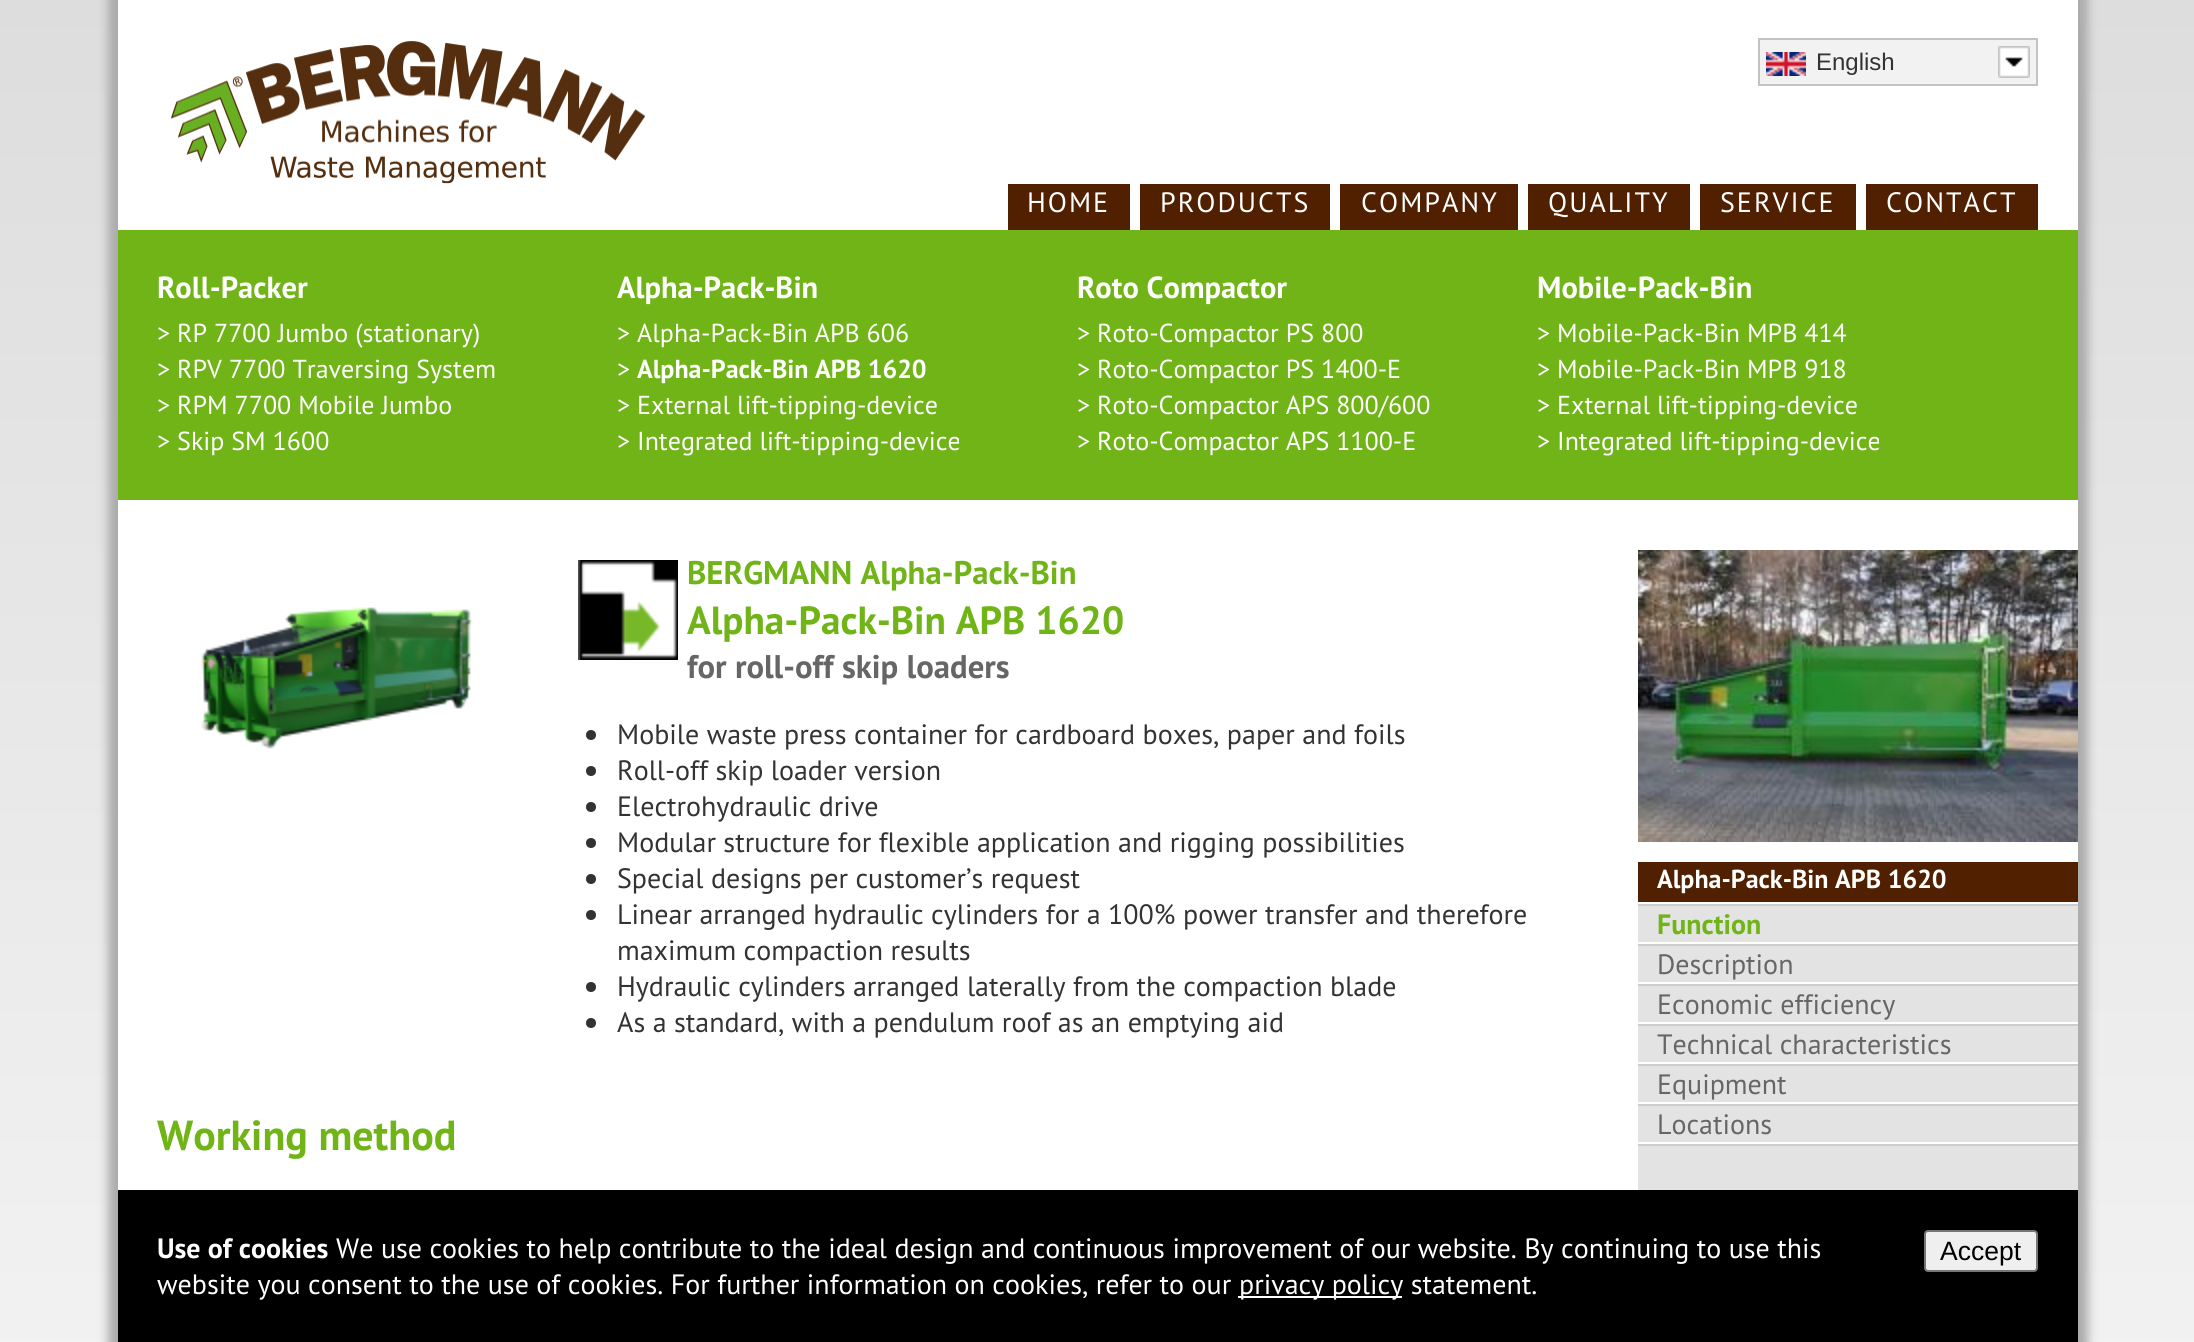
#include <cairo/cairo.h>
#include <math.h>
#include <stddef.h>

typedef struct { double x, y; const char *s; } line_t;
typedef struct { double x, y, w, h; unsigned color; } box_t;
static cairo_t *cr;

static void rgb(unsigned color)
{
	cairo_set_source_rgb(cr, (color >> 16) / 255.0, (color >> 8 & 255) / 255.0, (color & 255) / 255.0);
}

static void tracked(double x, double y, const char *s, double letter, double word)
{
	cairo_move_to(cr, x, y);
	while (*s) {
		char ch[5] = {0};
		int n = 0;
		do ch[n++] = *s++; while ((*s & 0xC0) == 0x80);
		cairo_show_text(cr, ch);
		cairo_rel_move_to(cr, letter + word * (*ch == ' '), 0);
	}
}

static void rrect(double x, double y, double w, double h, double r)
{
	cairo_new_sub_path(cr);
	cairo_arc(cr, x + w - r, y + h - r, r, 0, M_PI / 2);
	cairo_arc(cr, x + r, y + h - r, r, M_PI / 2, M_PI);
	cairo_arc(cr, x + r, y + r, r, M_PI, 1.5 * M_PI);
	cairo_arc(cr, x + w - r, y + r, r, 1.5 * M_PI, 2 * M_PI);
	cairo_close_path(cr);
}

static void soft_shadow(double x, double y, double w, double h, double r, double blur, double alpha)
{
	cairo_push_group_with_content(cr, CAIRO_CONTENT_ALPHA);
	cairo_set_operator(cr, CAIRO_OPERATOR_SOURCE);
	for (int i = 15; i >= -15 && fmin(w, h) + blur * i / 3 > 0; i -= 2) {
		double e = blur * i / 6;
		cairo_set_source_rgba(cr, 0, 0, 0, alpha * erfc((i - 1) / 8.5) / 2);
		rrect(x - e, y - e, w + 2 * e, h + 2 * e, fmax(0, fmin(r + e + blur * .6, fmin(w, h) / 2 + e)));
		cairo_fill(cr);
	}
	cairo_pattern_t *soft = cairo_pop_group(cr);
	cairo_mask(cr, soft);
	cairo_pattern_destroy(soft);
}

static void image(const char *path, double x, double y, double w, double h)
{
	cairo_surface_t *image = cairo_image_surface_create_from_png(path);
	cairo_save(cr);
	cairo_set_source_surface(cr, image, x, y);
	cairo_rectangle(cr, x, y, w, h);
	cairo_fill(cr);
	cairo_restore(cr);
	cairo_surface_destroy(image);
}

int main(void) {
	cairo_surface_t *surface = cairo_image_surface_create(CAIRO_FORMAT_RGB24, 2194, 1342);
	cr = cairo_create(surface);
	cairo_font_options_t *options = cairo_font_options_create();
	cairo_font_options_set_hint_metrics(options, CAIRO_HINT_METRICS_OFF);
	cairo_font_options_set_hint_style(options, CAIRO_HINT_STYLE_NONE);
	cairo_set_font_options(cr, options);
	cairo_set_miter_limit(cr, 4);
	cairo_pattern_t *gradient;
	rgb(0xffffff);
	cairo_paint(cr);
	gradient = cairo_pattern_create_linear(1097, 0, 1097, 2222);
	cairo_pattern_add_color_stop_rgba(gradient, 0, 0.867, 0.867, 0.867, 1);
	cairo_pattern_add_color_stop_rgba(gradient, 1, 1, 1, 1, 1);
	cairo_set_source(cr, gradient);
	cairo_pattern_destroy(gradient);
	cairo_rectangle(cr, 0, 0, 2194, 1342);
	cairo_fill(cr);
	rgb(0xaaaaaa);
	soft_shadow(108, -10, 1980, 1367, 0, 5, 1);
	rgb(0xffffff);
	cairo_rectangle(cr, 118, 0, 1960, 1190);
	cairo_fill(cr);
	image("img/1.png", 171, 41, 474, 143);
	rgb(0xf2f2f2);
	cairo_rectangle(cr, 1759, 39, 278, 46);
	cairo_fill_preserve(cr);
	rgb(0xc3c3c3);
	cairo_stroke(cr);
	image("img/2.png", 1766, 52, 40, 24);
	image("img/3.png", 1998, 46, 32, 32);
	{
		static const box_t items[] = {
			{1008, 184, 122, 46, 0x502000},
			{1140, 184, 190, 46, 0x502000},
			{1340, 184, 178, 46, 0x502000},
			{1528, 184, 162, 46, 0x502000},
			{1700, 184, 156, 46, 0x502000},
			{1866, 184, 172, 46, 0x502000},
			{118, 230, 1960, 270, 0x70b418},
		};
		for (size_t i = 0; i < sizeof items / sizeof *items; i++) {
			rgb(items[i].color);
			cairo_rectangle(cr, items[i].x, items[i].y, items[i].w, items[i].h);
			cairo_fill(cr);
		}
	}
	image("img/4.png", 201, 607, 272, 142);
	image("img/5.png", 578, 560, 100, 100);
	rgb(0x333333);
	cairo_arc(cr, 591, 735, 5, 0, 2 * M_PI);
	cairo_fill(cr);
	cairo_arc(cr, 591, 771, 5, 0, 2 * M_PI);
	cairo_fill(cr);
	cairo_arc(cr, 591, 807, 5, 0, 2 * M_PI);
	cairo_fill(cr);
	cairo_arc(cr, 591, 843, 5, 0, 2 * M_PI);
	cairo_fill(cr);
	cairo_arc(cr, 591, 879, 5, 0, 2 * M_PI);
	cairo_fill(cr);
	cairo_arc(cr, 591, 915, 5, 0, 2 * M_PI);
	cairo_fill(cr);
	cairo_arc(cr, 591, 987, 5, 0, 2 * M_PI);
	cairo_fill(cr);
	cairo_arc(cr, 591, 1023, 5, 0, 2 * M_PI);
	cairo_fill(cr);
	rgb(0xe3e3e3);
	cairo_rectangle(cr, 1638, 906, 440, 284);
	cairo_fill(cr);
	image("img/6.png", 1638, 550, 440, 292);
	{
		static const box_t items[] = {
			{1638, 862, 440, 40, 0x502000},
			{1638, 904, 440, 2, 0xcccccc},
			{1638, 942, 440, 2, 0xffffff},
			{1638, 944, 440, 2, 0xcccccc},
			{1638, 982, 440, 2, 0xffffff},
			{1638, 984, 440, 2, 0xcccccc},
			{1638, 1022, 440, 2, 0xffffff},
			{1638, 1024, 440, 2, 0xcccccc},
			{1638, 1062, 440, 2, 0xffffff},
			{1638, 1064, 440, 2, 0xcccccc},
			{1638, 1102, 440, 2, 0xffffff},
			{1638, 1104, 440, 2, 0xcccccc},
			{1638, 1142, 440, 2, 0xffffff},
			{1638, 1144, 440, 2, 0xcccccc},
			{118, 1190, 1960, 152, 0x000000},
		};
		for (size_t i = 0; i < sizeof items / sizeof *items; i++) {
			rgb(items[i].color);
			cairo_rectangle(cr, items[i].x, items[i].y, items[i].w, items[i].h);
			cairo_fill(cr);
		}
	}
	rgb(0xefefef);
	rrect(1925, 1231, 112, 40, 3);
	cairo_fill_preserve(cr);
	rgb(0x767676);
	cairo_stroke(cr);
	rgb(0xffffff);
	cairo_rectangle(cr, 1238, 1296, 164, 2);
	cairo_fill(cr);
	cairo_select_font_face(cr, "Liberation Sans", CAIRO_FONT_SLANT_NORMAL, CAIRO_FONT_WEIGHT_NORMAL);
	cairo_set_font_size(cr, 24);
	rgb(0x333333);
	cairo_move_to(cr, 1816, 70);
	cairo_show_text(cr, "English");
	cairo_select_font_face(cr, "PT Sans", CAIRO_FONT_SLANT_NORMAL, CAIRO_FONT_WEIGHT_NORMAL);
	cairo_set_font_size(cr, 28);
	rgb(0xffffff);
	{
		static const line_t items[] = {
			{1027, 212, "HOME"},
			{1160, 212, "PRODUCTS"},
			{1361, 212, "COMPANY"},
			{1548, 212, "QUALITY"},
			{1720, 212, "SERVICE"},
			{1886, 212, "CONTACT"},
		};
		for (size_t i = 0; i < sizeof items / sizeof *items; i++) {
			tracked(items[i].x, items[i].y, items[i].s, 2, 0);
		}
	}
	cairo_select_font_face(cr, "PT Sans", CAIRO_FONT_SLANT_NORMAL, CAIRO_FONT_WEIGHT_BOLD);
	cairo_set_font_size(cr, 30.5);
	cairo_move_to(cr, 157, 298);
	cairo_show_text(cr, "Roll-Packer");
	cairo_select_font_face(cr, "PT Sans", CAIRO_FONT_SLANT_NORMAL, CAIRO_FONT_WEIGHT_NORMAL);
	cairo_set_font_size(cr, 26);
	{
		static const line_t items[] = {
			{157, 342, "> RP 7700 Jumbo (stationary)"},
			{157, 378, "> RPV 7700 Traversing System"},
			{157, 414, "> RPM 7700 Mobile Jumbo"},
			{157, 450, "> Skip SM 1600"},
		};
		for (size_t i = 0; i < sizeof items / sizeof *items; i++) {
			cairo_move_to(cr, items[i].x, items[i].y);
			cairo_show_text(cr, items[i].s);
		}
	}
	cairo_select_font_face(cr, "PT Sans", CAIRO_FONT_SLANT_NORMAL, CAIRO_FONT_WEIGHT_BOLD);
	cairo_set_font_size(cr, 30.5);
	cairo_move_to(cr, 617, 298);
	cairo_show_text(cr, "Alpha-Pack-Bin");
	cairo_select_font_face(cr, "PT Sans", CAIRO_FONT_SLANT_NORMAL, CAIRO_FONT_WEIGHT_NORMAL);
	cairo_set_font_size(cr, 26);
	cairo_move_to(cr, 617, 342);
	cairo_show_text(cr, "> Alpha-Pack-Bin APB 606");
	cairo_move_to(cr, 617, 378);
	cairo_show_text(cr, ">");
	cairo_select_font_face(cr, "PT Sans", CAIRO_FONT_SLANT_NORMAL, CAIRO_FONT_WEIGHT_BOLD);
	cairo_move_to(cr, 637, 378);
	cairo_show_text(cr, "Alpha-Pack-Bin APB 1620");
	cairo_select_font_face(cr, "PT Sans", CAIRO_FONT_SLANT_NORMAL, CAIRO_FONT_WEIGHT_NORMAL);
	cairo_move_to(cr, 617, 414);
	cairo_show_text(cr, "> External lift-tipping-device");
	cairo_move_to(cr, 617, 450);
	cairo_show_text(cr, "> Integrated lift-tipping-device");
	cairo_select_font_face(cr, "PT Sans", CAIRO_FONT_SLANT_NORMAL, CAIRO_FONT_WEIGHT_BOLD);
	cairo_set_font_size(cr, 30.5);
	cairo_move_to(cr, 1077, 298);
	cairo_show_text(cr, "Roto Compactor");
	cairo_select_font_face(cr, "PT Sans", CAIRO_FONT_SLANT_NORMAL, CAIRO_FONT_WEIGHT_NORMAL);
	cairo_set_font_size(cr, 26);
	{
		static const line_t items[] = {
			{1077, 342, "> Roto-Compactor PS 800"},
			{1077, 378, "> Roto-Compactor PS 1400-E"},
			{1077, 414, "> Roto-Compactor APS 800/600"},
			{1077, 450, "> Roto-Compactor APS 1100-E"},
		};
		for (size_t i = 0; i < sizeof items / sizeof *items; i++) {
			cairo_move_to(cr, items[i].x, items[i].y);
			cairo_show_text(cr, items[i].s);
		}
	}
	cairo_select_font_face(cr, "PT Sans", CAIRO_FONT_SLANT_NORMAL, CAIRO_FONT_WEIGHT_BOLD);
	cairo_set_font_size(cr, 30.5);
	cairo_move_to(cr, 1537, 298);
	cairo_show_text(cr, "Mobile-Pack-Bin");
	cairo_select_font_face(cr, "PT Sans", CAIRO_FONT_SLANT_NORMAL, CAIRO_FONT_WEIGHT_NORMAL);
	cairo_set_font_size(cr, 26);
	{
		static const line_t items[] = {
			{1537, 342, "> Mobile-Pack-Bin MPB 414"},
			{1537, 378, "> Mobile-Pack-Bin MPB 918"},
			{1537, 414, "> External lift-tipping-device"},
			{1537, 450, "> Integrated lift-tipping-device"},
		};
		for (size_t i = 0; i < sizeof items / sizeof *items; i++) {
			cairo_move_to(cr, items[i].x, items[i].y);
			cairo_show_text(cr, items[i].s);
		}
	}
	cairo_select_font_face(cr, "PT Sans", CAIRO_FONT_SLANT_NORMAL, CAIRO_FONT_WEIGHT_BOLD);
	cairo_set_font_size(cr, 32.75);
	rgb(0x70b418);
	cairo_move_to(cr, 687, 584);
	cairo_show_text(cr, "BERGMANN Alpha-Pack-Bin");
	cairo_set_font_size(cr, 39.25);
	cairo_move_to(cr, 687, 634);
	cairo_show_text(cr, "Alpha-Pack-Bin APB 1620");
	cairo_set_font_size(cr, 32.75);
	rgb(0x666666);
	cairo_move_to(cr, 687, 678);
	cairo_show_text(cr, "for roll-off skip loaders");
	cairo_select_font_face(cr, "PT Sans", CAIRO_FONT_SLANT_NORMAL, CAIRO_FONT_WEIGHT_NORMAL);
	cairo_set_font_size(cr, 28);
	rgb(0x333333);
	{
		static const line_t items[] = {
			{617, 744, "Mobile waste press container for cardboard boxes, paper and foils"},
			{617, 780, "Roll-off skip loader version"},
			{617, 816, "Electrohydraulic drive"},
			{617, 852, "Modular structure for flexible application and rigging possibilities"},
			{617, 888, "Special designs per customer’s request"},
			{617, 924, "Linear arranged hydraulic cylinders for a 100% power transfer and therefore"},
			{617, 960, "maximum compaction results"},
			{617, 996, "Hydraulic cylinders arranged laterally from the compaction blade"},
			{617, 1032, "As a standard, with a pendulum roof as an emptying aid"},
		};
		for (size_t i = 0; i < sizeof items / sizeof *items; i++) {
			cairo_move_to(cr, items[i].x, items[i].y);
			cairo_show_text(cr, items[i].s);
		}
	}
	cairo_select_font_face(cr, "PT Sans", CAIRO_FONT_SLANT_NORMAL, CAIRO_FONT_WEIGHT_BOLD);
	cairo_set_font_size(cr, 42);
	rgb(0x70b418);
	cairo_move_to(cr, 157, 1150);
	cairo_show_text(cr, "Working method");
	cairo_set_font_size(cr, 26);
	rgb(0xffffff);
	cairo_move_to(cr, 1657, 888);
	cairo_show_text(cr, "Alpha-Pack-Bin APB 1620");
	cairo_set_font_size(cr, 28);
	rgb(0x70b418);
	cairo_move_to(cr, 1657, 934);
	cairo_show_text(cr, "Function");
	cairo_select_font_face(cr, "PT Sans", CAIRO_FONT_SLANT_NORMAL, CAIRO_FONT_WEIGHT_NORMAL);
	rgb(0x666666);
	{
		static const line_t items[] = {
			{1657, 974, "Description"},
			{1657, 1014, "Economic efficiency"},
			{1657, 1054, "Technical characteristics"},
			{1657, 1094, "Equipment"},
			{1657, 1134, "Locations"},
		};
		for (size_t i = 0; i < sizeof items / sizeof *items; i++) {
			cairo_move_to(cr, items[i].x, items[i].y);
			cairo_show_text(cr, items[i].s);
		}
	}
	cairo_select_font_face(cr, "PT Sans", CAIRO_FONT_SLANT_NORMAL, CAIRO_FONT_WEIGHT_BOLD);
	rgb(0xffffff);
	cairo_move_to(cr, 157, 1258);
	cairo_show_text(cr, "Use of cookies");
	cairo_select_font_face(cr, "PT Sans", CAIRO_FONT_SLANT_NORMAL, CAIRO_FONT_WEIGHT_NORMAL);
	cairo_move_to(cr, 336, 1258);
	cairo_show_text(cr, "We use cookies to help contribute to the ideal design and continuous improvement of our website. By continuing to use this");
	cairo_select_font_face(cr, "Liberation Sans", CAIRO_FONT_SLANT_NORMAL, CAIRO_FONT_WEIGHT_NORMAL);
	cairo_set_font_size(cr, 26.5);
	rgb(0x000000);
	cairo_move_to(cr, 1940, 1260);
	cairo_show_text(cr, "Accept");
	cairo_select_font_face(cr, "PT Sans", CAIRO_FONT_SLANT_NORMAL, CAIRO_FONT_WEIGHT_NORMAL);
	cairo_set_font_size(cr, 28);
	rgb(0xffffff);
	cairo_move_to(cr, 157, 1294);
	cairo_show_text(cr, "website you consent to the use of cookies. For further information on cookies, refer to our");
	cairo_move_to(cr, 1239, 1294);
	cairo_show_text(cr, "privacy policy statement.");
	cairo_surface_write_to_png(surface, "page.png");
	cairo_font_options_destroy(options);
	cairo_destroy(cr);
	cairo_surface_destroy(surface);
	return 0;
}
